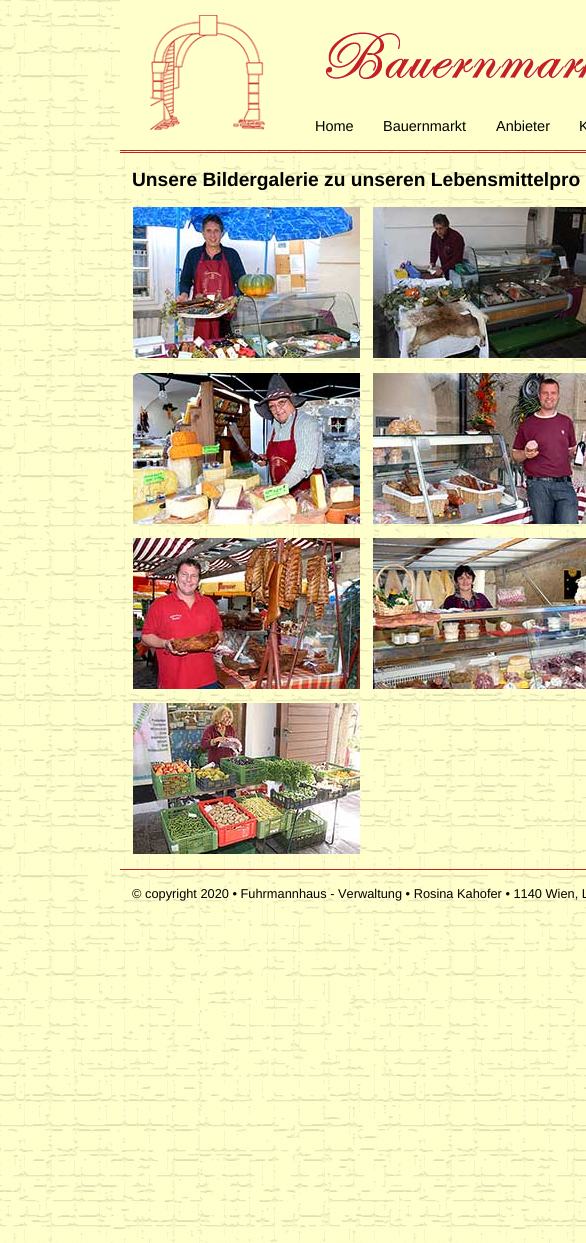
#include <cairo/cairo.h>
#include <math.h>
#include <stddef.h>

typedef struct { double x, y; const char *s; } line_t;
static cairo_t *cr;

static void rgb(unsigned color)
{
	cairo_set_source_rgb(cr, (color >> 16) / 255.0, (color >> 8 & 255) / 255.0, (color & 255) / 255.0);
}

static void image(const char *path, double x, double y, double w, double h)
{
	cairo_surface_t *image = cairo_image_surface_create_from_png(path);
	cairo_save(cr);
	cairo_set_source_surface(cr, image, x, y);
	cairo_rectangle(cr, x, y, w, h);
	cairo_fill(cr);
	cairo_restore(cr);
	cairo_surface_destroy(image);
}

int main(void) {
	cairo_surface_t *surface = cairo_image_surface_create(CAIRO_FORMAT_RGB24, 586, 1243);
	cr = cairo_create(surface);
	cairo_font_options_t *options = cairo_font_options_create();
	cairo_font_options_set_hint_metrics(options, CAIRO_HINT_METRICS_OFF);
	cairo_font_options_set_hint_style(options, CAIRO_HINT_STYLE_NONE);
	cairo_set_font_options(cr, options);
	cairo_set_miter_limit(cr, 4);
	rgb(0xffffff);
	cairo_paint(cr);
	image("img/1.png", 0, 0, 586, 1243);
	rgb(0xffffcc);
	cairo_rectangle(cr, 120, 0, 466, 150);
	cairo_fill(cr);
	image("img/2.png", 150, 15, 115, 115);
	image("img/3.png", 326, 32, 260, 47);
	rgb(0xc62121);
	cairo_rectangle(cr, 120, 150, 466, 1);
	cairo_fill(cr);
	cairo_rectangle(cr, 120, 152, 466, 1);
	cairo_fill(cr);
	image("img/4.png", 133, 207, 227, 151);
	image("img/5.png", 373, 207, 213, 151);
	image("img/6.png", 133, 373, 227, 151);
	image("img/7.png", 373, 373, 213, 151);
	image("img/8.png", 133, 538, 227, 151);
	image("img/9.png", 373, 538, 213, 151);
	image("img/10.png", 133, 703, 227, 151);
	cairo_rectangle(cr, 120, 869, 466, 1);
	cairo_fill(cr);
	cairo_select_font_face(cr, "Liberation Sans", CAIRO_FONT_SLANT_NORMAL, CAIRO_FONT_WEIGHT_NORMAL);
	cairo_set_font_size(cr, 14.5);
	rgb(0x000000);
	{
		static const line_t items[] = {
			{315, 131, "Home"},
			{383, 131, "Bauernmarkt"},
			{496, 131, "Anbieter"},
			{579, 131, "K"},
		};
		for (size_t i = 0; i < sizeof items / sizeof *items; i++) {
			cairo_move_to(cr, items[i].x, items[i].y);
			cairo_show_text(cr, items[i].s);
		}
	}
	cairo_select_font_face(cr, "Liberation Sans", CAIRO_FONT_SLANT_NORMAL, CAIRO_FONT_WEIGHT_BOLD);
	cairo_set_font_size(cr, 19.2);
	cairo_move_to(cr, 132, 186);
	cairo_show_text(cr, "Unsere Bildergalerie zu unseren Lebensmittelpro");
	cairo_select_font_face(cr, "Liberation Sans", CAIRO_FONT_SLANT_NORMAL, CAIRO_FONT_WEIGHT_NORMAL);
	cairo_set_font_size(cr, 12.8);
	cairo_move_to(cr, 132, 898);
	cairo_show_text(cr, "© copyright 2020 • Fuhrmannhaus - Verwaltung • Rosina Kahofer • 1140 Wien, L");
	cairo_surface_write_to_png(surface, "page.png");
	cairo_font_options_destroy(options);
	cairo_destroy(cr);
	cairo_surface_destroy(surface);
	return 0;
}
